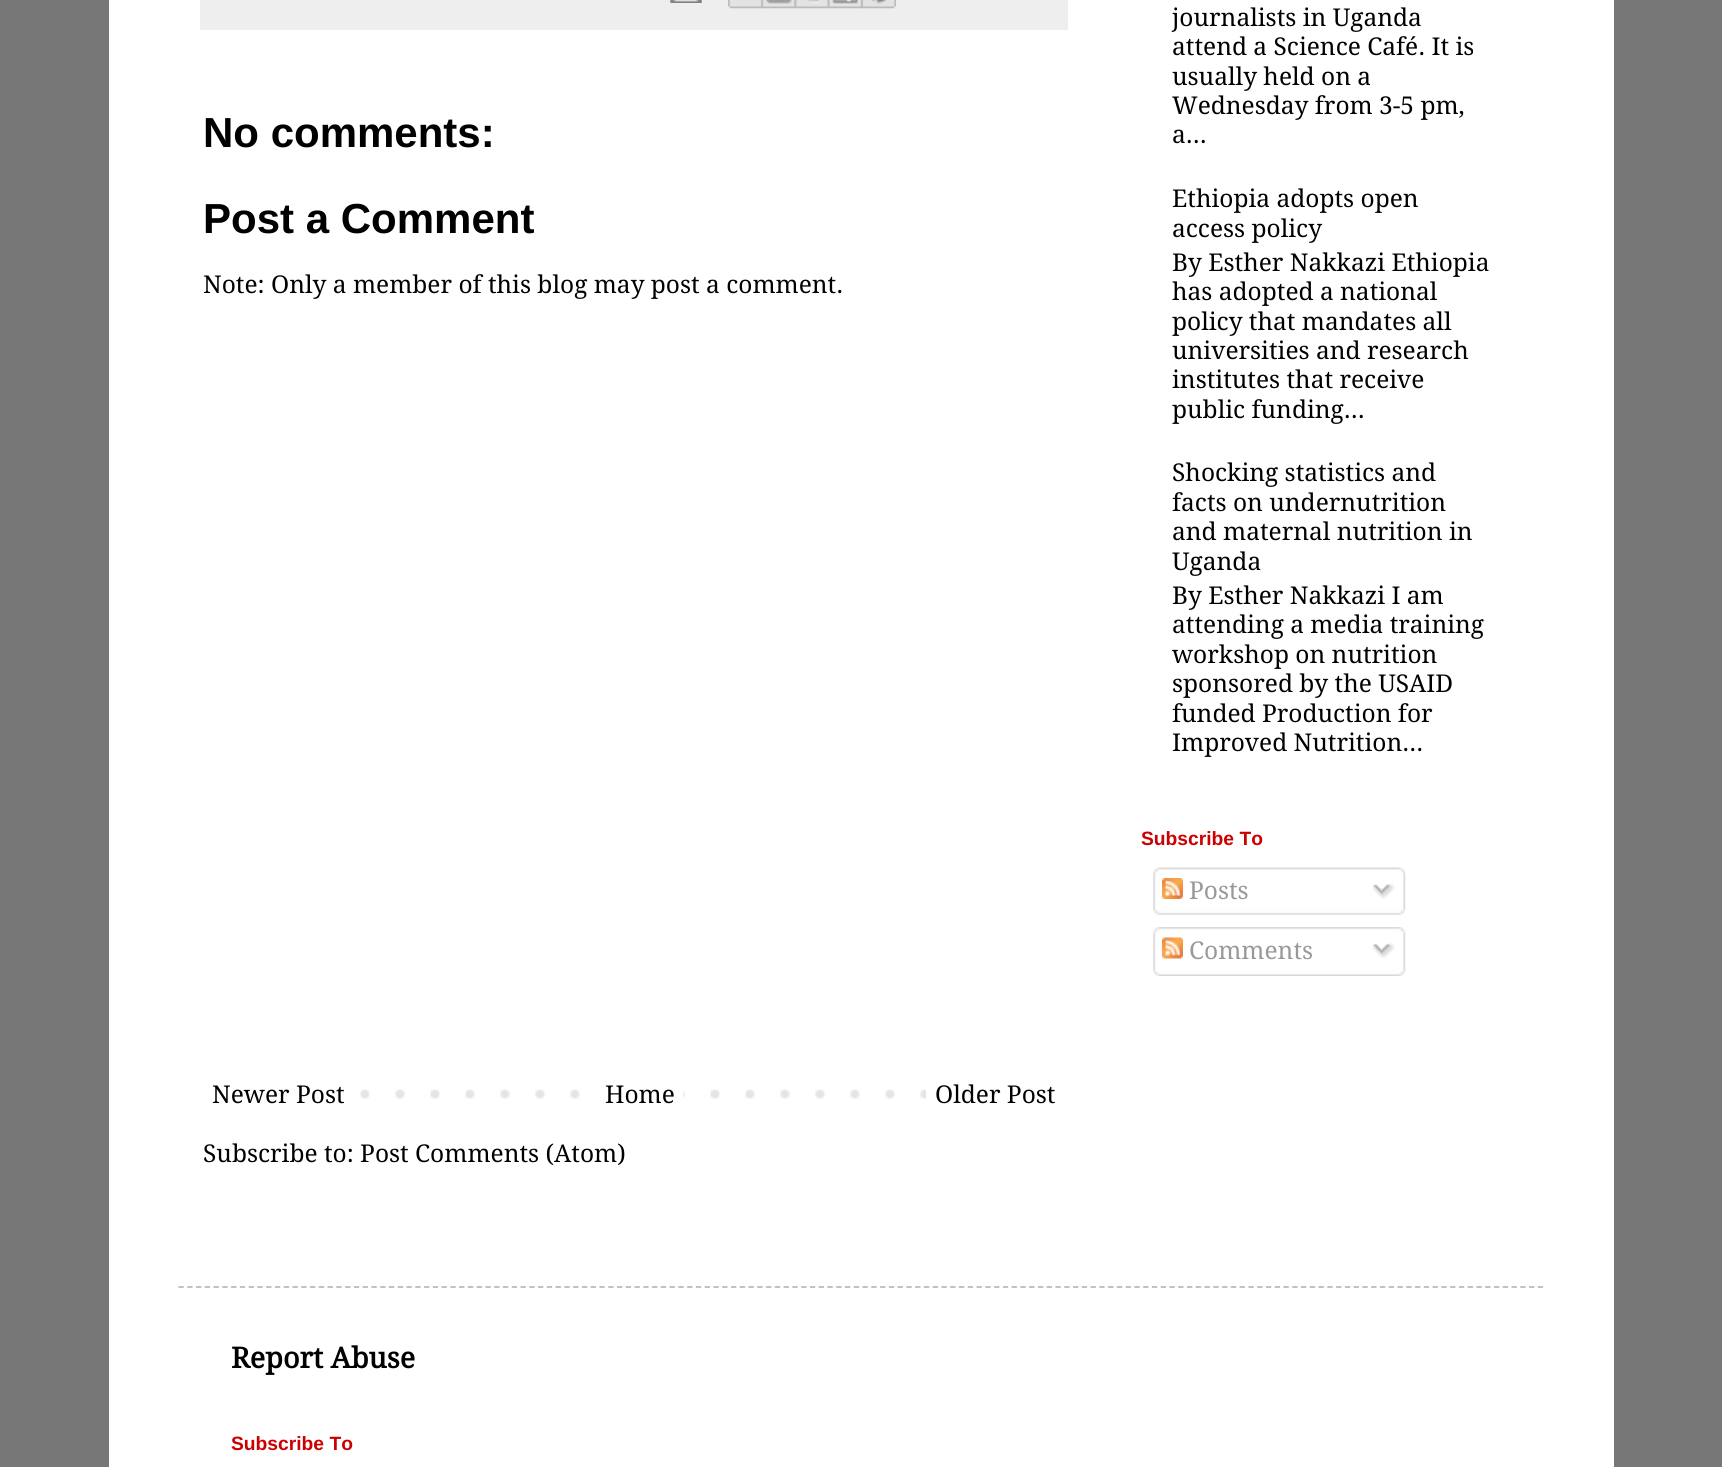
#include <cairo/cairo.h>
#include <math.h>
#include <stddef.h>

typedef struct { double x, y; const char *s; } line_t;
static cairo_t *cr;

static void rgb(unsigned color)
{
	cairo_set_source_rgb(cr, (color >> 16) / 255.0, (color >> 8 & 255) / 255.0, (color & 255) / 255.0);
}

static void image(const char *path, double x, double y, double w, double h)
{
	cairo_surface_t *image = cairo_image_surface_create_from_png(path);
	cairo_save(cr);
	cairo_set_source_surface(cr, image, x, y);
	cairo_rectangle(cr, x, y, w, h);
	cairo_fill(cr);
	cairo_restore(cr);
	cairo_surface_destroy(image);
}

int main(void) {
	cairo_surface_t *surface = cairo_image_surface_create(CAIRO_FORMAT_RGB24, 1722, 1467);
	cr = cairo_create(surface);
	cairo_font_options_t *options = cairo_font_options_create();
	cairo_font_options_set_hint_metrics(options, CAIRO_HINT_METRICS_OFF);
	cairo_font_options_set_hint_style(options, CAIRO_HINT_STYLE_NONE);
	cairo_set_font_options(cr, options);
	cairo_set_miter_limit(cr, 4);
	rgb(0x777777);
	cairo_paint(cr);
	rgb(0xffffff);
	cairo_rectangle(cr, 109, 0, 1505, 1467);
	cairo_fill(cr);
	rgb(0xeeeeee);
	cairo_rectangle(cr, 200, 0, 868, 30);
	cairo_fill(cr);
	image("img/1.png", 670, 0, 32, 3);
	image("img/2.png", 728, 0, 35, 9);
	image("img/3.png", 761, 0, 36, 9);
	image("img/4.png", 794, 0, 36, 9);
	image("img/5.png", 827, 0, 36, 9);
	image("img/6.png", 861, 0, 35, 9);
	image("img/7.png", 360, 1089, 566, 10);
	rgb(0xffffff);
	cairo_rectangle(cr, 605, 1089, 78, 10);
	cairo_fill(cr);
	image("img/8.png", 1153, 867, 253, 43);
	image("img/9.png", 1162, 878, 21, 21);
	image("img/10.png", 1372, 883, 23, 16);
	image("img/11.png", 1153, 909, 252, 6);
	image("img/12.png", 1153, 927, 253, 44);
	image("img/13.png", 1162, 937, 21, 22);
	image("img/14.png", 1372, 943, 23, 16);
	image("img/15.png", 1153, 970, 252, 6);
	cairo_new_path(cr);
	cairo_move_to(cr, 178.5, 1287);
	cairo_line_to(cr, 1543.5, 1287);
	rgb(0xbbbbbb);
	cairo_set_line_width(cr, 1.8);
	cairo_set_dash(cr, (double[]){5.25, 3.52}, 2, 0);
	cairo_stroke(cr);
	cairo_select_font_face(cr, "Liberation Sans", CAIRO_FONT_SLANT_NORMAL, CAIRO_FONT_WEIGHT_BOLD);
	cairo_set_font_size(cr, 42);
	rgb(0x000000);
	cairo_move_to(cr, 203, 147);
	cairo_show_text(cr, "No comments:");
	cairo_move_to(cr, 203, 233);
	cairo_show_text(cr, "Post a Comment");
	cairo_select_font_face(cr, "Droid Serif", CAIRO_FONT_SLANT_NORMAL, CAIRO_FONT_WEIGHT_NORMAL);
	cairo_set_font_size(cr, 24.5);
	{
		static const line_t items[] = {
			{203, 293, "Note: Only a member of this blog may post a comment."},
			{212, 1103, "Newer Post"},
			{605, 1103, "Home"},
			{935, 1103, "Older Post"},
			{203, 1162, "Subscribe to: Post Comments (Atom)"},
			{1172, 26, "journalists in Uganda"},
			{1172, 55, "attend a Science Café. It is"},
			{1172, 85, "usually held on a"},
			{1172, 114, "Wednesday from 3-5 pm,"},
			{1172, 143, "a..."},
			{1172, 207, "Ethiopia adopts open"},
			{1172, 237, "access policy"},
			{1172, 271, "By Esther Nakkazi Ethiopia"},
			{1172, 300, "has adopted a national"},
			{1172, 330, "policy that mandates all"},
			{1172, 359, "universities and research"},
			{1172, 388, "institutes that receive"},
			{1172, 418, "public funding..."},
			{1172, 481, "Shocking statistics and"},
			{1172, 511, "facts on undernutrition"},
			{1172, 540, "and maternal nutrition in"},
			{1172, 570, "Uganda"},
			{1172, 604, "By Esther Nakkazi I am"},
			{1172, 633, "attending a media training"},
			{1172, 663, "workshop on nutrition"},
			{1172, 692, "sponsored by the USAID"},
			{1172, 722, "funded Production for"},
			{1172, 751, "Improved Nutrition..."},
		};
		for (size_t i = 0; i < sizeof items / sizeof *items; i++) {
			cairo_move_to(cr, items[i].x, items[i].y);
			cairo_show_text(cr, items[i].s);
		}
	}
	cairo_select_font_face(cr, "Liberation Sans", CAIRO_FONT_SLANT_NORMAL, CAIRO_FONT_WEIGHT_BOLD);
	cairo_set_font_size(cr, 19.25);
	rgb(0xcc0000);
	cairo_move_to(cr, 1141, 845);
	cairo_show_text(cr, "Subscribe To");
	cairo_select_font_face(cr, "Droid Serif", CAIRO_FONT_SLANT_NORMAL, CAIRO_FONT_WEIGHT_NORMAL);
	cairo_set_font_size(cr, 24.5);
	rgb(0x999999);
	cairo_move_to(cr, 1189, 899);
	cairo_show_text(cr, "Posts");
	cairo_move_to(cr, 1189, 959);
	cairo_show_text(cr, "Comments");
	cairo_select_font_face(cr, "Droid Serif", CAIRO_FONT_SLANT_NORMAL, CAIRO_FONT_WEIGHT_BOLD);
	cairo_set_font_size(cr, 28.75);
	rgb(0x000000);
	cairo_move_to(cr, 231, 1368);
	cairo_show_text(cr, "Report Abuse");
	cairo_select_font_face(cr, "Liberation Sans", CAIRO_FONT_SLANT_NORMAL, CAIRO_FONT_WEIGHT_BOLD);
	cairo_set_font_size(cr, 19.25);
	rgb(0xcc0000);
	cairo_move_to(cr, 231, 1450);
	cairo_show_text(cr, "Subscribe To");
	cairo_surface_write_to_png(surface, "page.png");
	cairo_font_options_destroy(options);
	cairo_destroy(cr);
	cairo_surface_destroy(surface);
	return 0;
}
